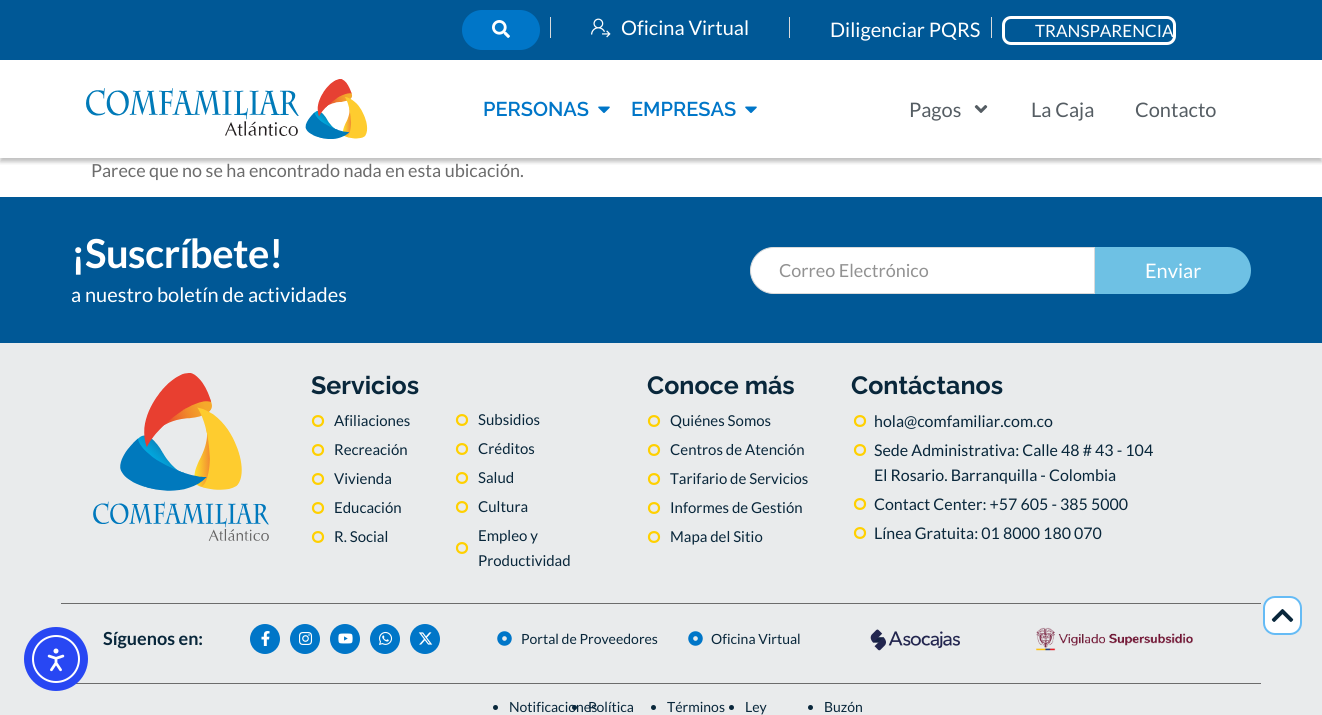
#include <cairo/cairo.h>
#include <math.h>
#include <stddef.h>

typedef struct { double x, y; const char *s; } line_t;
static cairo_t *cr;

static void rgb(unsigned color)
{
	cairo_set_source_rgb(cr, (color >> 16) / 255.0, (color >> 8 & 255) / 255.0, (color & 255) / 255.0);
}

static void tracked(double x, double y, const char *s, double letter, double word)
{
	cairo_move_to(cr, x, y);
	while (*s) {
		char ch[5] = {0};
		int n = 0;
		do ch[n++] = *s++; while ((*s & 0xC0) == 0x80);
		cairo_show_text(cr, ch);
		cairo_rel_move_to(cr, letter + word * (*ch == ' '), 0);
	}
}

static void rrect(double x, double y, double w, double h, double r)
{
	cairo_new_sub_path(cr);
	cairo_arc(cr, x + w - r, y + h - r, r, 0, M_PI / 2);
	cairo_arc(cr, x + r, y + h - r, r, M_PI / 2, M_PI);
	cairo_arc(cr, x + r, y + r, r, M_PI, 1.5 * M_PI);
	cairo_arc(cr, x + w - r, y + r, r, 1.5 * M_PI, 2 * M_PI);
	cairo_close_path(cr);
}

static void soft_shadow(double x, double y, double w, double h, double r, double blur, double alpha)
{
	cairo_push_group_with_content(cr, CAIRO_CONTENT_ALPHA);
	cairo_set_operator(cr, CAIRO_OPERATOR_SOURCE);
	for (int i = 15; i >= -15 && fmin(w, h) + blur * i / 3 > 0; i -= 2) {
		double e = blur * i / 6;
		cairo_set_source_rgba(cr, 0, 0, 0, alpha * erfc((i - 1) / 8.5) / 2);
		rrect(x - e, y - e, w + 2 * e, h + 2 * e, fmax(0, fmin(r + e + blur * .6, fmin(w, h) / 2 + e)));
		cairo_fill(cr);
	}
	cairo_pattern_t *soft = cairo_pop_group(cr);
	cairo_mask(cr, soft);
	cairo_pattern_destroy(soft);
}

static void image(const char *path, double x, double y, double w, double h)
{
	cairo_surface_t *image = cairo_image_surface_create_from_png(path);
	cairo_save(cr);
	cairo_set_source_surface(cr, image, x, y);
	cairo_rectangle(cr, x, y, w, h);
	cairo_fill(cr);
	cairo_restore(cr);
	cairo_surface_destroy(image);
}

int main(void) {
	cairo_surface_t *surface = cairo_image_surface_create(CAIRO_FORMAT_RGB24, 1322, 715);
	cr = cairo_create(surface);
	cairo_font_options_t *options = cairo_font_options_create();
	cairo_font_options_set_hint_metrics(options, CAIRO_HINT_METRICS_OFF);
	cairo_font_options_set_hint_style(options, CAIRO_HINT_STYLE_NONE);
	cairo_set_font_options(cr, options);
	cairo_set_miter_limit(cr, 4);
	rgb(0xffffff);
	cairo_paint(cr);
	cairo_save(cr);
	cairo_rectangle(cr, 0, 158, 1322, 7);
	cairo_clip(cr);
	rgb(0x000000);
	soft_shadow(0, 64, 1322, 98, 0, 2, 0.24);
	cairo_restore(cr);
	rgb(0x005896);
	cairo_rectangle(cr, 0, 0, 1322, 60);
	cairo_fill(cr);
	rgb(0x0076c8);
	rrect(462, 10, 78, 40, 20);
	cairo_fill(cr);
	image("img/1.png", 492, 20, 18, 18);
	rgb(0xd9dadb);
	cairo_rectangle(cr, 550, 17, 1, 21);
	cairo_fill(cr);
	image("img/2.png", 591, 18, 20, 20);
	cairo_rectangle(cr, 789, 17, 1, 21);
	cairo_fill(cr);
	cairo_rectangle(cr, 991, 17, 1, 21);
	cairo_fill(cr);
	rrect(1003.5, 17.5, 171, 26, 7.5);
	rgb(0xffffff);
	cairo_set_line_width(cr, 3);
	cairo_stroke(cr);
	image("img/3.png", 86, 79, 282, 60);
	image("img/4.png", 598, 106, 12, 7);
	image("img/4.png", 745, 106, 12, 7);
	image("img/5.png", 974, 105, 14, 8);
	rgb(0xe9ebec);
	cairo_rectangle(cr, 0, 343, 1322, 372);
	cairo_fill(cr);
	rgb(0x6c6c6c);
	cairo_rectangle(cr, 76, 683, 1185, 1);
	cairo_fill(cr);
	rgb(0x2847f3);
	cairo_arc(cr, 56, 659, 32, 0, 2 * M_PI);
	cairo_fill(cr);
	cairo_arc(cr, 56, 659, 23, 0, 2 * M_PI);
	rgb(0xffffff);
	cairo_set_line_width(cr, 2);
	cairo_stroke(cr);
	image("img/6.png", 47, 648, 18, 24);
	rgb(0x005896);
	cairo_rectangle(cr, 0, 197, 1322, 146);
	cairo_fill(cr);
	rgb(0xffffff);
	cairo_new_path(cr);
	cairo_move_to(cr, 773.5, 247.5);
	cairo_line_to(cr, 1094.5, 247.5);
	cairo_line_to(cr, 1094.5, 293.5);
	cairo_line_to(cr, 773.5, 293.5);
	cairo_curve_to(cr, 761, 293.5, 750.5, 283, 750.5, 270.5);
	cairo_curve_to(cr, 750.5, 258, 761, 247.5, 773.5, 247.5);
	cairo_close_path(cr);
	cairo_fill_preserve(cr);
	rgb(0xd9dadb);
	cairo_set_line_width(cr, 1);
	cairo_stroke(cr);
	rgb(0x6ec1e4);
	cairo_new_path(cr);
	cairo_move_to(cr, 1095, 247);
	cairo_line_to(cr, 1227.5, 247);
	cairo_curve_to(cr, 1240.5, 247, 1251, 257.5, 1251, 270.5);
	cairo_curve_to(cr, 1251, 283.5, 1240.5, 294, 1227.5, 294);
	cairo_line_to(cr, 1095, 294);
	cairo_close_path(cr);
	cairo_fill(cr);
	image("img/7.png", 93, 373, 176, 168);
	cairo_new_path(cr);
	cairo_move_to(cr, 323, 421);
	cairo_curve_to(cr, 323, 427.5, 313, 427.5, 313, 421);
	cairo_curve_to(cr, 313, 414.5, 323, 414.5, 323, 421);
	cairo_close_path(cr);
	rgb(0xffd000);
	cairo_set_line_width(cr, 2.2);
	cairo_stroke(cr);
	cairo_new_path(cr);
	cairo_move_to(cr, 323, 450);
	cairo_curve_to(cr, 323, 456.5, 313, 456.5, 313, 450);
	cairo_curve_to(cr, 313, 443.5, 323, 443.5, 323, 450);
	cairo_close_path(cr);
	cairo_stroke(cr);
	cairo_new_path(cr);
	cairo_move_to(cr, 323, 479);
	cairo_curve_to(cr, 323, 485.5, 313, 485.5, 313, 479);
	cairo_curve_to(cr, 313, 472.5, 323, 472.5, 323, 479);
	cairo_close_path(cr);
	cairo_stroke(cr);
	cairo_new_path(cr);
	cairo_move_to(cr, 323, 508);
	cairo_curve_to(cr, 323, 514.5, 313, 514.5, 313, 508);
	cairo_curve_to(cr, 313, 501.5, 323, 501.5, 323, 508);
	cairo_close_path(cr);
	cairo_stroke(cr);
	cairo_new_path(cr);
	cairo_move_to(cr, 323, 537);
	cairo_curve_to(cr, 323, 543.5, 313, 543.5, 313, 537);
	cairo_curve_to(cr, 313, 530.5, 323, 530.5, 323, 537);
	cairo_close_path(cr);
	cairo_stroke(cr);
	cairo_new_path(cr);
	cairo_move_to(cr, 467, 420);
	cairo_curve_to(cr, 467, 426.5, 457, 426.5, 457, 420);
	cairo_curve_to(cr, 457, 413.5, 467, 413.5, 467, 420);
	cairo_close_path(cr);
	cairo_stroke(cr);
	cairo_new_path(cr);
	cairo_move_to(cr, 467, 449);
	cairo_curve_to(cr, 467, 455.5, 457, 455.5, 457, 449);
	cairo_curve_to(cr, 457, 442.5, 467, 442.5, 467, 449);
	cairo_close_path(cr);
	cairo_stroke(cr);
	cairo_new_path(cr);
	cairo_move_to(cr, 467, 478);
	cairo_curve_to(cr, 467, 484.5, 457, 484.5, 457, 478);
	cairo_curve_to(cr, 457, 471.5, 467, 471.5, 467, 478);
	cairo_close_path(cr);
	cairo_stroke(cr);
	cairo_new_path(cr);
	cairo_move_to(cr, 467, 507);
	cairo_curve_to(cr, 467, 513.5, 457, 513.5, 457, 507);
	cairo_curve_to(cr, 457, 500.5, 467, 500.5, 467, 507);
	cairo_close_path(cr);
	cairo_stroke(cr);
	cairo_new_path(cr);
	cairo_move_to(cr, 467, 548);
	cairo_curve_to(cr, 467, 554.5, 457, 554.5, 457, 548);
	cairo_curve_to(cr, 457, 541.5, 467, 541.5, 467, 548);
	cairo_close_path(cr);
	cairo_stroke(cr);
	cairo_new_path(cr);
	cairo_move_to(cr, 659, 421);
	cairo_curve_to(cr, 659, 427.5, 649, 427.5, 649, 421);
	cairo_curve_to(cr, 649, 414.5, 659, 414.5, 659, 421);
	cairo_close_path(cr);
	cairo_stroke(cr);
	cairo_new_path(cr);
	cairo_move_to(cr, 659, 450);
	cairo_curve_to(cr, 659, 456.5, 649, 456.5, 649, 450);
	cairo_curve_to(cr, 649, 443.5, 659, 443.5, 659, 450);
	cairo_close_path(cr);
	cairo_stroke(cr);
	cairo_new_path(cr);
	cairo_move_to(cr, 659, 479);
	cairo_curve_to(cr, 659, 485.5, 649, 485.5, 649, 479);
	cairo_curve_to(cr, 649, 472.5, 659, 472.5, 659, 479);
	cairo_close_path(cr);
	cairo_stroke(cr);
	cairo_new_path(cr);
	cairo_move_to(cr, 659, 508);
	cairo_curve_to(cr, 659, 514.5, 649, 514.5, 649, 508);
	cairo_curve_to(cr, 649, 501.5, 659, 501.5, 659, 508);
	cairo_close_path(cr);
	cairo_stroke(cr);
	cairo_new_path(cr);
	cairo_move_to(cr, 659, 537);
	cairo_curve_to(cr, 659, 543.5, 649, 543.5, 649, 537);
	cairo_curve_to(cr, 649, 530.5, 659, 530.5, 659, 537);
	cairo_close_path(cr);
	cairo_stroke(cr);
	cairo_new_path(cr);
	cairo_move_to(cr, 865, 421);
	cairo_curve_to(cr, 865, 427.5, 855, 427.5, 855, 421);
	cairo_curve_to(cr, 855, 414.5, 865, 414.5, 865, 421);
	cairo_close_path(cr);
	cairo_stroke(cr);
	cairo_new_path(cr);
	cairo_move_to(cr, 865, 450);
	cairo_curve_to(cr, 865, 456.5, 855, 456.5, 855, 450);
	cairo_curve_to(cr, 855, 443.5, 865, 443.5, 865, 450);
	cairo_close_path(cr);
	cairo_stroke(cr);
	cairo_new_path(cr);
	cairo_move_to(cr, 865, 504);
	cairo_curve_to(cr, 865, 510.5, 855, 510.5, 855, 504);
	cairo_curve_to(cr, 855, 497.5, 865, 497.5, 865, 504);
	cairo_close_path(cr);
	cairo_stroke(cr);
	cairo_new_path(cr);
	cairo_move_to(cr, 865, 533);
	cairo_curve_to(cr, 865, 539.5, 855, 539.5, 855, 533);
	cairo_curve_to(cr, 855, 526.5, 865, 526.5, 865, 533);
	cairo_close_path(cr);
	cairo_stroke(cr);
	rgb(0x6c6c6c);
	cairo_rectangle(cr, 61, 603, 1200, 1);
	cairo_fill(cr);
	rgb(0x0076c8);
	cairo_arc(cr, 265, 639, 15, 0, 2 * M_PI);
	cairo_fill(cr);
	image("img/8.png", 261, 631, 9, 15);
	cairo_arc(cr, 305, 639, 15, 0, 2 * M_PI);
	cairo_fill(cr);
	image("img/9.png", 299, 632, 14, 13);
	cairo_arc(cr, 345, 639, 15, 0, 2 * M_PI);
	cairo_fill(cr);
	image("img/10.png", 338, 633, 15, 11);
	cairo_arc(cr, 385, 639, 15, 0, 2 * M_PI);
	cairo_fill(cr);
	image("img/11.png", 379, 631, 14, 14);
	cairo_arc(cr, 425, 639, 15, 0, 2 * M_PI);
	cairo_fill(cr);
	image("img/12.png", 418, 632, 15, 13);
	image("img/13.png", 497, 631, 15, 15);
	image("img/13.png", 688, 631, 15, 15);
	image("img/14.png", 870, 629, 90, 22);
	image("img/15.png", 1036, 627, 157, 24);
	rgb(0x09273b);
	cairo_arc(cr, 495.5, 707.5, 2.5, 0, 2 * M_PI);
	cairo_fill(cr);
	cairo_arc(cr, 574.5, 707.5, 2.5, 0, 2 * M_PI);
	cairo_fill(cr);
	cairo_arc(cr, 653.5, 707.5, 2.5, 0, 2 * M_PI);
	cairo_fill(cr);
	cairo_arc(cr, 731.5, 707.5, 2.5, 0, 2 * M_PI);
	cairo_fill(cr);
	cairo_arc(cr, 810.5, 707.5, 2.5, 0, 2 * M_PI);
	cairo_fill(cr);
	rgb(0xffffff);
	rrect(1264, 597, 37, 37, 11);
	cairo_fill_preserve(cr);
	rgb(0x65bbf5);
	cairo_set_line_width(cr, 2);
	cairo_stroke(cr);
	image("img/16.png", 1271, 609, 23, 13);
	cairo_select_font_face(cr, "Lato", CAIRO_FONT_SLANT_NORMAL, CAIRO_FONT_WEIGHT_NORMAL);
	cairo_set_font_size(cr, 20);
	rgb(0xffffff);
	cairo_move_to(cr, 621, 35);
	cairo_show_text(cr, "Oficina Virtual");
	cairo_move_to(cr, 830, 37);
	cairo_show_text(cr, "Diligenciar PQRS");
	cairo_set_font_size(cr, 17);
	cairo_move_to(cr, 1035, 37);
	cairo_show_text(cr, "TRANSPARENCIA");
	cairo_select_font_face(cr, "Raleway SemiBold", CAIRO_FONT_SLANT_NORMAL, CAIRO_FONT_WEIGHT_NORMAL);
	cairo_set_font_size(cr, 20);
	rgb(0x0076c8);
	cairo_move_to(cr, 483, 116);
	cairo_show_text(cr, "PERSONAS");
	cairo_move_to(cr, 631, 116);
	cairo_show_text(cr, "EMPRESAS");
	cairo_select_font_face(cr, "Lato", CAIRO_FONT_SLANT_NORMAL, CAIRO_FONT_WEIGHT_NORMAL);
	rgb(0x555d63);
	{
		static const line_t items[] = {
			{909, 117, "Pagos"},
			{1031, 117, "La Caja"},
			{1135, 117, "Contacto"},
		};
		for (size_t i = 0; i < sizeof items / sizeof *items; i++) {
			cairo_move_to(cr, items[i].x, items[i].y);
			cairo_show_text(cr, items[i].s);
		}
	}
	cairo_set_font_size(cr, 18);
	rgb(0x6c6c6c);
	cairo_move_to(cr, 91, 177);
	cairo_show_text(cr, "Parece que no se ha encontrado nada en esta ubicación.");
	cairo_select_font_face(cr, "Lato", CAIRO_FONT_SLANT_NORMAL, CAIRO_FONT_WEIGHT_BOLD);
	cairo_set_font_size(cr, 40);
	rgb(0xffffff);
	tracked(71, 268, "¡Suscríbete!", -0.5, 0);
	cairo_select_font_face(cr, "Lato", CAIRO_FONT_SLANT_NORMAL, CAIRO_FONT_WEIGHT_NORMAL);
	cairo_set_font_size(cr, 20);
	cairo_move_to(cr, 71, 302);
	cairo_show_text(cr, "a nuestro boletín de actividades");
	cairo_set_font_size(cr, 18);
	rgb(0x929292);
	cairo_move_to(cr, 779, 277);
	cairo_show_text(cr, "Correo Electrónico");
	cairo_set_font_size(cr, 20);
	rgb(0xffffff);
	cairo_move_to(cr, 1145, 278);
	cairo_show_text(cr, "Enviar");
	cairo_select_font_face(cr, "Raleway", CAIRO_FONT_SLANT_NORMAL, CAIRO_FONT_WEIGHT_BOLD);
	cairo_set_font_size(cr, 25);
	rgb(0x09273b);
	cairo_move_to(cr, 311, 394);
	cairo_show_text(cr, "Servicios");
	cairo_select_font_face(cr, "Lato", CAIRO_FONT_SLANT_NORMAL, CAIRO_FONT_WEIGHT_NORMAL);
	cairo_set_font_size(cr, 15);
	{
		static const line_t items[] = {
			{334, 426, "Afiliaciones"},
			{334, 455, "Recreación"},
			{334, 484, "Vivienda"},
			{334, 513, "Educación"},
			{334, 542, "R. Social"},
			{478, 425, "Subsidios"},
			{478, 454, "Créditos"},
			{478, 483, "Salud"},
			{478, 512, "Cultura"},
			{478, 541, "Empleo y"},
			{478, 566, "Productividad"},
		};
		for (size_t i = 0; i < sizeof items / sizeof *items; i++) {
			cairo_move_to(cr, items[i].x, items[i].y);
			cairo_show_text(cr, items[i].s);
		}
	}
	cairo_select_font_face(cr, "Raleway", CAIRO_FONT_SLANT_NORMAL, CAIRO_FONT_WEIGHT_BOLD);
	cairo_set_font_size(cr, 25);
	cairo_move_to(cr, 647, 394);
	cairo_show_text(cr, "Conoce más");
	cairo_select_font_face(cr, "Lato", CAIRO_FONT_SLANT_NORMAL, CAIRO_FONT_WEIGHT_NORMAL);
	cairo_set_font_size(cr, 15);
	{
		static const line_t items[] = {
			{670, 426, "Quiénes Somos"},
			{670, 455, "Centros de Atención"},
			{670, 484, "Tarifario de Servicios"},
			{670, 513, "Informes de Gestión"},
			{670, 542, "Mapa del Sitio"},
		};
		for (size_t i = 0; i < sizeof items / sizeof *items; i++) {
			cairo_move_to(cr, items[i].x, items[i].y);
			cairo_show_text(cr, items[i].s);
		}
	}
	cairo_select_font_face(cr, "Raleway", CAIRO_FONT_SLANT_NORMAL, CAIRO_FONT_WEIGHT_BOLD);
	cairo_set_font_size(cr, 25);
	cairo_move_to(cr, 851, 394);
	cairo_show_text(cr, "Contáctanos");
	cairo_select_font_face(cr, "Lato", CAIRO_FONT_SLANT_NORMAL, CAIRO_FONT_WEIGHT_NORMAL);
	cairo_set_font_size(cr, 16);
	{
		static const line_t items[] = {
			{874, 427, "hola@comfamiliar.com.co"},
			{874, 456, "Sede Administrativa: Calle 48 # 43 - 104"},
			{874, 481, "El Rosario. Barranquilla - Colombia"},
			{874, 510, "Contact Center: +57 605 - 385 5000"},
			{874, 539, "Línea Gratuita: 01 8000 180 070"},
		};
		for (size_t i = 0; i < sizeof items / sizeof *items; i++) {
			cairo_move_to(cr, items[i].x, items[i].y);
			cairo_show_text(cr, items[i].s);
		}
	}
	cairo_select_font_face(cr, "Lato", CAIRO_FONT_SLANT_NORMAL, CAIRO_FONT_WEIGHT_BOLD);
	cairo_set_font_size(cr, 18);
	cairo_move_to(cr, 103, 645);
	cairo_show_text(cr, "Síguenos en:");
	cairo_select_font_face(cr, "Lato", CAIRO_FONT_SLANT_NORMAL, CAIRO_FONT_WEIGHT_NORMAL);
	cairo_set_font_size(cr, 14);
	{
		static const line_t items[] = {
			{521, 644, "Portal de Proveedores"},
			{711, 644, "Oficina Virtual"},
			{509, 712, "Notificaciones"},
			{588, 712, "Política"},
			{667, 712, "Términos"},
			{745, 712, "Ley"},
			{824, 712, "Buzón"},
		};
		for (size_t i = 0; i < sizeof items / sizeof *items; i++) {
			cairo_move_to(cr, items[i].x, items[i].y);
			cairo_show_text(cr, items[i].s);
		}
	}
	cairo_surface_write_to_png(surface, "page.png");
	cairo_font_options_destroy(options);
	cairo_destroy(cr);
	cairo_surface_destroy(surface);
	return 0;
}
